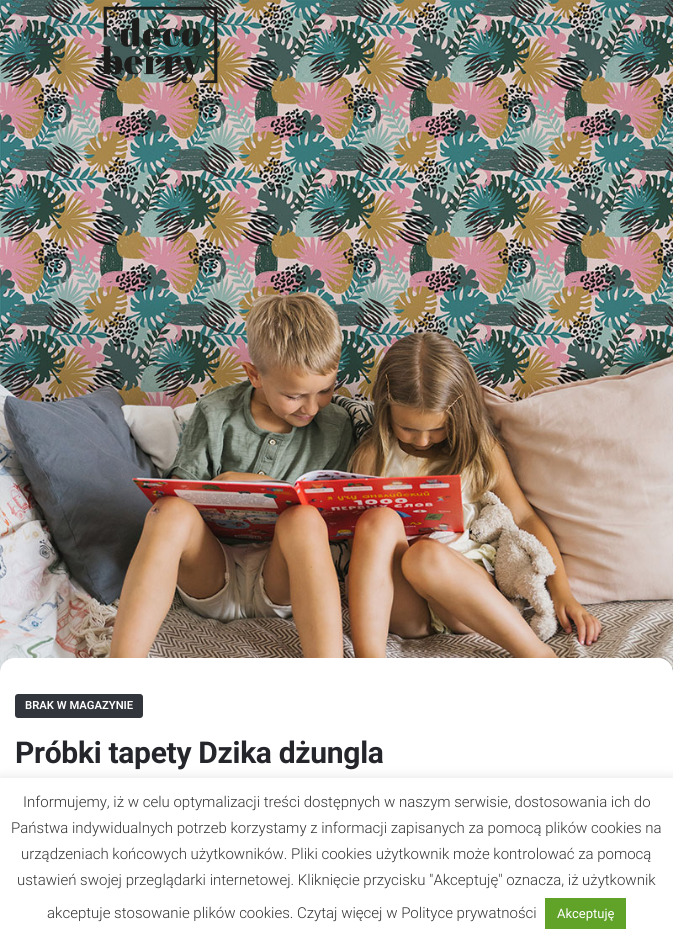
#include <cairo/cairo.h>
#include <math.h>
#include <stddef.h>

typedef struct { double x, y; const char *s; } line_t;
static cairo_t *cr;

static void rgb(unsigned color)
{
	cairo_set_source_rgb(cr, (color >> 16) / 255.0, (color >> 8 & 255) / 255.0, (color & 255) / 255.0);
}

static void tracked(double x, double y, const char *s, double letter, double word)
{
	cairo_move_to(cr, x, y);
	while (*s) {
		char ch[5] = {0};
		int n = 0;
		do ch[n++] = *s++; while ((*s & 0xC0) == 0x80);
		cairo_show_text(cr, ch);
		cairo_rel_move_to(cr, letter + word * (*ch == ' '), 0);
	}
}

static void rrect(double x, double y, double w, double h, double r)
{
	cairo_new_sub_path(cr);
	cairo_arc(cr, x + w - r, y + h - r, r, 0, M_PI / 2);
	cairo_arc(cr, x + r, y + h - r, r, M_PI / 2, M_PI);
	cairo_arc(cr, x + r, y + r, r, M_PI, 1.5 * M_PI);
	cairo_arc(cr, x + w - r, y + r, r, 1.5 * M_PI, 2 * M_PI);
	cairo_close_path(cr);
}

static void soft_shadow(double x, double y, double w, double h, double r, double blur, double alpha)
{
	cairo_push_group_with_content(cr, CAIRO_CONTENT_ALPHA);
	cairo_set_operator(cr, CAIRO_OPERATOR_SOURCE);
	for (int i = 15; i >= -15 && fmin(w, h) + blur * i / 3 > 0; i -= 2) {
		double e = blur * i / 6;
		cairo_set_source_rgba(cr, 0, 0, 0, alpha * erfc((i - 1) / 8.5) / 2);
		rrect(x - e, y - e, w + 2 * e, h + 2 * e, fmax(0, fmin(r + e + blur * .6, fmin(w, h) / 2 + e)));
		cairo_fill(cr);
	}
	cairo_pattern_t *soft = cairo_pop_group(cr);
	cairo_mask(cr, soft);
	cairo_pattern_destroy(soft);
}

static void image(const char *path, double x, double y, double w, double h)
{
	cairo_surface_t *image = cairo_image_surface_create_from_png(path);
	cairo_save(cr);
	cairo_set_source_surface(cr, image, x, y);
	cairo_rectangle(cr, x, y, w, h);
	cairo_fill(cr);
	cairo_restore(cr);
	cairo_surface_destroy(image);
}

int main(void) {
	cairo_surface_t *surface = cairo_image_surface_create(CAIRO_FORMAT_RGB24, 673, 941);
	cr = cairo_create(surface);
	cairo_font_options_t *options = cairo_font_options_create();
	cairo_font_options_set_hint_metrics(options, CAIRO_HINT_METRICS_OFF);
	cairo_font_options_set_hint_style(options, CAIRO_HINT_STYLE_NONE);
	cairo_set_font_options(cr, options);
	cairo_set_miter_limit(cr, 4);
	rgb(0xffffff);
	cairo_paint(cr);
	image("img/3.png", 0, 0, 673, 673);
	cairo_set_source_rgba(cr, 0, 0, 0, 0.06);
	cairo_rectangle(cr, 15, 20, 50, 50);
	cairo_fill(cr);
	rgb(0x32353c);
	cairo_rectangle(cr, 30, 38, 20, 2);
	cairo_fill(cr);
	cairo_rectangle(cr, 30, 44, 20, 2);
	cairo_fill(cr);
	cairo_rectangle(cr, 30, 50, 10, 2);
	cairo_fill(cr);
	image("img/1.png", 101, 6, 117, 78);
	image("img/2.png", 643, 36, 15, 15);
	rgb(0xffffff);
	cairo_new_path(cr);
	cairo_move_to(cr, 15, 658);
	cairo_line_to(cr, 658, 658);
	cairo_curve_to(cr, 666.5, 658, 673, 664.5, 673, 673);
	cairo_line_to(cr, 673, 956);
	cairo_line_to(cr, 0, 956);
	cairo_line_to(cr, 0, 673);
	cairo_curve_to(cr, 0, 664.5, 6.5, 658, 15, 658);
	cairo_close_path(cr);
	cairo_fill(cr);
	rgb(0x32353c);
	rrect(15, 694, 128, 24, 3);
	cairo_fill(cr);
	rgb(0xacabab);
	soft_shadow(0, 777, 673, 163, 0, 5, 0.3);
	rgb(0xffffff);
	cairo_rectangle(cr, 0, 778, 673, 163);
	cairo_fill(cr);
	rgb(0x61a229);
	cairo_rectangle(cr, 545, 898, 81, 31);
	cairo_fill(cr);
	cairo_select_font_face(cr, "Roboto SemiBold", CAIRO_FONT_SLANT_NORMAL, CAIRO_FONT_WEIGHT_NORMAL);
	cairo_set_font_size(cr, 11.25);
	rgb(0xffffff);
	cairo_move_to(cr, 25, 709);
	cairo_show_text(cr, "BRAK W MAGAZYNIE");
	cairo_select_font_face(cr, "Roboto", CAIRO_FONT_SLANT_NORMAL, CAIRO_FONT_WEIGHT_BOLD);
	cairo_set_font_size(cr, 30);
	rgb(0x24262b);
	tracked(15, 763, "Próbki tapety Dzika dżungla", -0.3, 0);
	cairo_select_font_face(cr, "Roboto Light", CAIRO_FONT_SLANT_NORMAL, CAIRO_FONT_WEIGHT_NORMAL);
	cairo_set_font_size(cr, 15);
	rgb(0x333333);
	{
		static const line_t items[] = {
			{23, 807, "Informujemy, iż w celu optymalizacji treści dostępnych w naszym serwisie, dostosowania ich do"},
			{11, 833, "Państwa indywidualnych potrzeb korzystamy z informacji zapisanych za pomocą plików cookies na"},
			{21, 859, "urządzeniach końcowych użytkowników. Pliki cookies użytkownik może kontrolować za pomocą"},
			{17, 885, "ustawień swojej przeglądarki internetowej. Kliknięcie przycisku \"Akceptuję\" oznacza, iż użytkownik"},
			{47, 918, "akceptuje stosowanie plików cookies. Czytaj więcej w Polityce prywatności"},
		};
		for (size_t i = 0; i < sizeof items / sizeof *items; i++) {
			cairo_move_to(cr, items[i].x, items[i].y);
			cairo_show_text(cr, items[i].s);
		}
	}
	cairo_select_font_face(cr, "Roboto", CAIRO_FONT_SLANT_NORMAL, CAIRO_FONT_WEIGHT_NORMAL);
	cairo_set_font_size(cr, 13);
	rgb(0xffffff);
	cairo_move_to(cr, 557, 918);
	cairo_show_text(cr, "Akceptuję");
	cairo_surface_write_to_png(surface, "page.png");
	cairo_font_options_destroy(options);
	cairo_destroy(cr);
	cairo_surface_destroy(surface);
	return 0;
}
